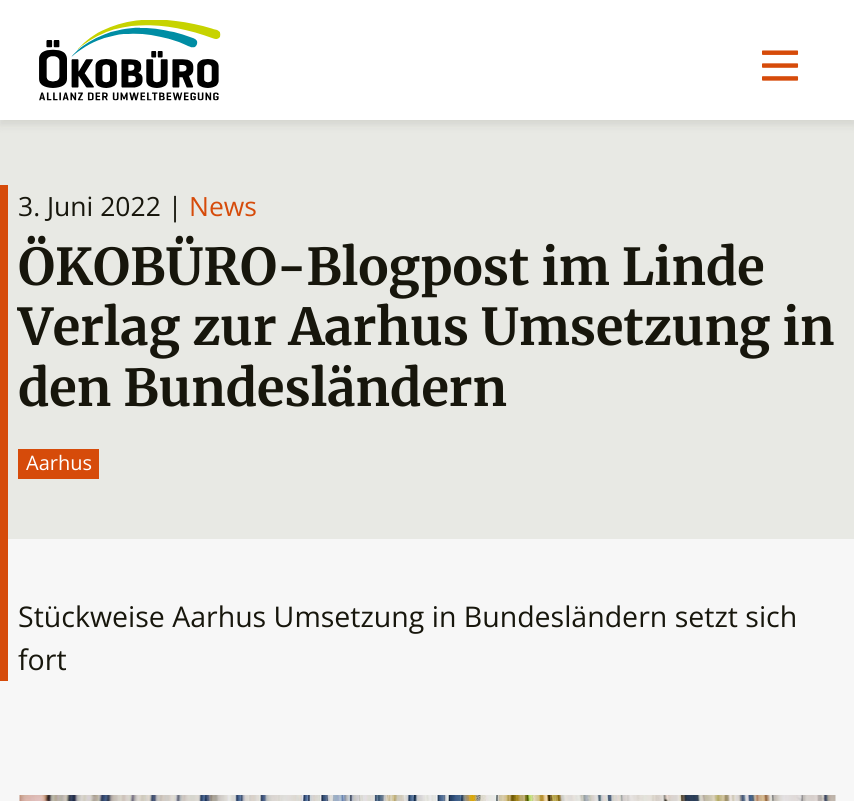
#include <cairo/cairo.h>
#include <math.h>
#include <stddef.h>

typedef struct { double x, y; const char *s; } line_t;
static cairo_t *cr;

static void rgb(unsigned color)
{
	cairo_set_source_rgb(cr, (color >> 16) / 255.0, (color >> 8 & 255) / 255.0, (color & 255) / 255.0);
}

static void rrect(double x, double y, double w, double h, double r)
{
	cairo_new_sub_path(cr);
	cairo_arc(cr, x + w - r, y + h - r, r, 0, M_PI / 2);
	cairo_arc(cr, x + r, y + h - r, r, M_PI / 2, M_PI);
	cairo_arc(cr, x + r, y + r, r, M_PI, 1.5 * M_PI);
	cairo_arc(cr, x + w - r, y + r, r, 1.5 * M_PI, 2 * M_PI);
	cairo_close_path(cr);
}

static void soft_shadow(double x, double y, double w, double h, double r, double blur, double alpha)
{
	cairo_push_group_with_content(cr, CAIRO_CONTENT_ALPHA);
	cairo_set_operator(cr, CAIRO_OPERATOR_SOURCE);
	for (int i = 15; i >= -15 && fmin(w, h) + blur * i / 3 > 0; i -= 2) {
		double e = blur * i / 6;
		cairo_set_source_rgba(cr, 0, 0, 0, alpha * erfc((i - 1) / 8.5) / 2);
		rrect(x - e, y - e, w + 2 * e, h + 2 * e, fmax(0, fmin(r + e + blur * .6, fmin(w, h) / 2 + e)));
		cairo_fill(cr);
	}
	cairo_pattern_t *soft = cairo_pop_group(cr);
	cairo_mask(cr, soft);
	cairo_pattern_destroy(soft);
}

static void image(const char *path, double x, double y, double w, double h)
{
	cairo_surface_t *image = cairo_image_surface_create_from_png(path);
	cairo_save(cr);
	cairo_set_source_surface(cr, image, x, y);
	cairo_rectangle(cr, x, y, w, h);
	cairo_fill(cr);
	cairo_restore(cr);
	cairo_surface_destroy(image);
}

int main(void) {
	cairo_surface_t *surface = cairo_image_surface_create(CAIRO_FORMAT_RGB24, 854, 801);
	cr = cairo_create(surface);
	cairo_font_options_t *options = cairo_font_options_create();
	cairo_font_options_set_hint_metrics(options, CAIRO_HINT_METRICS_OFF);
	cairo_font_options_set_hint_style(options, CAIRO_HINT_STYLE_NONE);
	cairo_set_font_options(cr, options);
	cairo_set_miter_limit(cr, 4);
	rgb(0xf7f7f7);
	cairo_paint(cr);
	rgb(0xe8e9e4);
	cairo_rectangle(cr, 0, 120, 854, 419);
	cairo_fill(cr);
	rgb(0x17160c);
	soft_shadow(0, 5, 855, 120, 0, 4.5, 0.1);
	rgb(0xffffff);
	cairo_rectangle(cr, 0, 0, 854, 120);
	cairo_fill(cr);
	image("img/1.png", 39, 20, 182, 81);
	image("img/2.png", 762, 50, 37, 31);
	rgb(0xd64b0a);
	cairo_rectangle(cr, 0, 185, 8, 496);
	cairo_fill(cr);
	cairo_rectangle(cr, 18, 449, 81, 30);
	cairo_fill(cr);
	image("img/3.png", 19, 795, 817, 6);
	cairo_select_font_face(cr, "Open Sans", CAIRO_FONT_SLANT_NORMAL, CAIRO_FONT_WEIGHT_NORMAL);
	cairo_set_font_size(cr, 26.5);
	rgb(0x17160c);
	cairo_move_to(cr, 18, 216);
	cairo_show_text(cr, "3. Juni 2022 |");
	rgb(0xd64b0a);
	cairo_move_to(cr, 189, 216);
	cairo_show_text(cr, "News");
	cairo_select_font_face(cr, "Merriweather Light", CAIRO_FONT_SLANT_NORMAL, CAIRO_FONT_WEIGHT_NORMAL);
	cairo_set_font_size(cr, 50.75);
	rgb(0x17160c);
	{
		static const line_t items[] = {
			{18, 285, "ÖKOBÜRO-Blogpost im Linde"},
			{18, 345, "Verlag zur Aarhus Umsetzung in"},
			{18, 406, "den Bundesländern"},
		};
		for (size_t i = 0; i < sizeof items / sizeof *items; i++) {
			cairo_move_to(cr, items[i].x, items[i].y);
			cairo_show_text(cr, items[i].s);
		}
	}
	cairo_select_font_face(cr, "Open Sans", CAIRO_FONT_SLANT_NORMAL, CAIRO_FONT_WEIGHT_NORMAL);
	cairo_set_font_size(cr, 20);
	rgb(0xffffff);
	cairo_move_to(cr, 26, 470);
	cairo_show_text(cr, "Aarhus");
	cairo_set_font_size(cr, 28.5);
	rgb(0x17160c);
	cairo_move_to(cr, 18, 627);
	cairo_show_text(cr, "Stückweise Aarhus Umsetzung in Bundesländern setzt sich");
	cairo_move_to(cr, 18, 670);
	cairo_show_text(cr, "fort");
	cairo_surface_write_to_png(surface, "page.png");
	cairo_font_options_destroy(options);
	cairo_destroy(cr);
	cairo_surface_destroy(surface);
	return 0;
}
